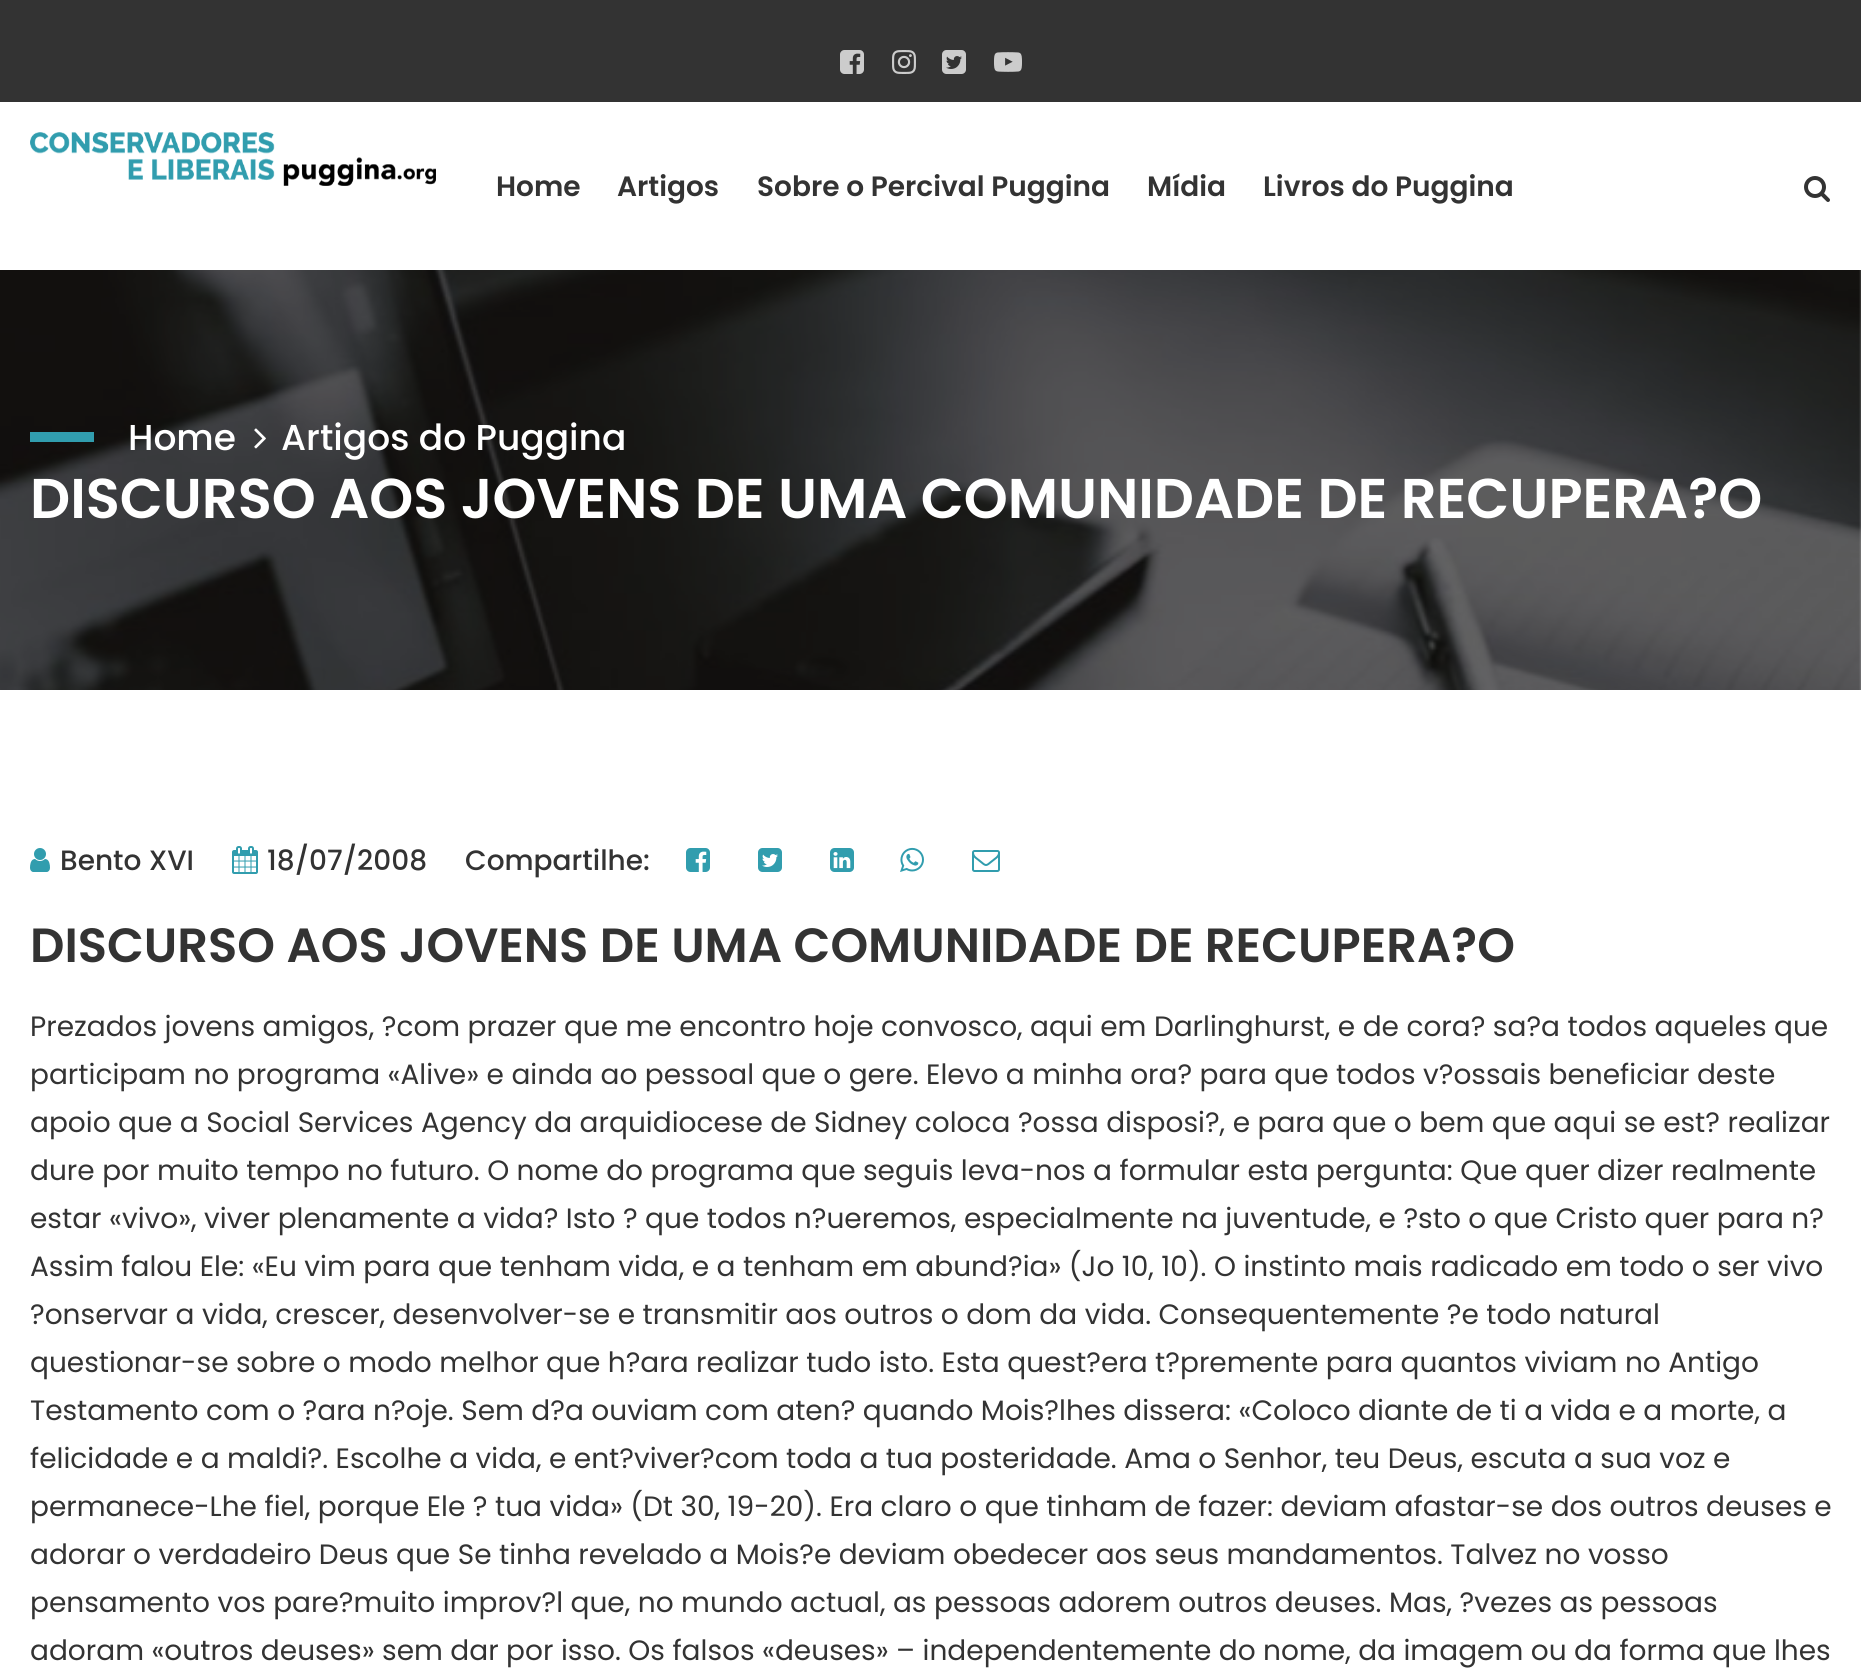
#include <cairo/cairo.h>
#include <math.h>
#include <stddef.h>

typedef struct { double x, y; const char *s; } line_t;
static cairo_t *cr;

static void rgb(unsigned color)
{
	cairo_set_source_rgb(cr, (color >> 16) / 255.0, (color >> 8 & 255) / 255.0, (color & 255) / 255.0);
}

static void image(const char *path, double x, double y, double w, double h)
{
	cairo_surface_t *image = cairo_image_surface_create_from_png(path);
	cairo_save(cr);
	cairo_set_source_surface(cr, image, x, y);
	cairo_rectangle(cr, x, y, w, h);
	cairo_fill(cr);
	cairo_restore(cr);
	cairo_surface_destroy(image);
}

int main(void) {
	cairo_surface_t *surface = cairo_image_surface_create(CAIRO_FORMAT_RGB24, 1861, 1669);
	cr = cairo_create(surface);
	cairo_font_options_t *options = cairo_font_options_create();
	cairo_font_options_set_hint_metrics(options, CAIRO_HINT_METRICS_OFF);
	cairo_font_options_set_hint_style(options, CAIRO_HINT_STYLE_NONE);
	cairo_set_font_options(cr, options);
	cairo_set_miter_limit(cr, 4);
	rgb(0xffffff);
	cairo_paint(cr);
	rgb(0x333333);
	cairo_rectangle(cr, 0, 0, 1861, 102);
	cairo_fill(cr);
	image("img/1.png", 840, 50, 24, 24);
	image("img/2.png", 892, 50, 24, 24);
	image("img/3.png", 942, 50, 24, 24);
	image("img/4.png", 994, 52, 28, 20);
	image("img/5.png", 30, 132, 406, 54);
	image("img/6.png", 1804, 176, 26, 26);
	image("img/7.png", 0, 270, 1861, 420);
	rgb(0x319dae);
	cairo_rectangle(cr, 30, 432, 64, 10);
	cairo_fill(cr);
	image("img/8.png", 254, 428, 12, 21);
	image("img/9.png", 30, 848, 20, 24);
	image("img/10.png", 232, 846, 26, 28);
	image("img/11.png", 686, 848, 24, 24);
	image("img/12.png", 758, 848, 24, 24);
	image("img/13.png", 830, 848, 24, 24);
	image("img/14.png", 900, 847, 24, 25);
	image("img/15.png", 972, 850, 28, 22);
	cairo_select_font_face(cr, "Poppins SemiBold", CAIRO_FONT_SLANT_NORMAL, CAIRO_FONT_WEIGHT_NORMAL);
	cairo_set_font_size(cr, 28);
	rgb(0x333333);
	{
		static const line_t items[] = {
			{496, 196, "Home"},
			{617, 196, "Artigos"},
			{757, 196, "Sobre o Percival Puggina"},
			{1147, 196, "Mídia"},
			{1263, 196, "Livros do Puggina"},
		};
		for (size_t i = 0; i < sizeof items / sizeof *items; i++) {
			cairo_move_to(cr, items[i].x, items[i].y);
			cairo_show_text(cr, items[i].s);
		}
	}
	cairo_select_font_face(cr, "Poppins Medium", CAIRO_FONT_SLANT_NORMAL, CAIRO_FONT_WEIGHT_NORMAL);
	cairo_set_font_size(cr, 36);
	rgb(0xffffff);
	cairo_move_to(cr, 128, 450);
	cairo_show_text(cr, "Home");
	cairo_move_to(cr, 281, 450);
	cairo_show_text(cr, "Artigos do Puggina");
	cairo_select_font_face(cr, "Poppins SemiBold", CAIRO_FONT_SLANT_NORMAL, CAIRO_FONT_WEIGHT_NORMAL);
	cairo_set_font_size(cr, 56);
	cairo_move_to(cr, 30, 518);
	cairo_show_text(cr, "DISCURSO AOS JOVENS DE UMA COMUNIDADE DE RECUPERA?O");
	cairo_select_font_face(cr, "Poppins Medium", CAIRO_FONT_SLANT_NORMAL, CAIRO_FONT_WEIGHT_NORMAL);
	cairo_set_font_size(cr, 28);
	rgb(0x333333);
	{
		static const line_t items[] = {
			{60, 870, "Bento XVI"},
			{267, 870, "18/07/2008"},
			{465, 870, "Compartilhe:"},
		};
		for (size_t i = 0; i < sizeof items / sizeof *items; i++) {
			cairo_move_to(cr, items[i].x, items[i].y);
			cairo_show_text(cr, items[i].s);
		}
	}
	cairo_select_font_face(cr, "Poppins SemiBold", CAIRO_FONT_SLANT_NORMAL, CAIRO_FONT_WEIGHT_NORMAL);
	cairo_set_font_size(cr, 48);
	cairo_move_to(cr, 30, 962);
	cairo_show_text(cr, "DISCURSO AOS JOVENS DE UMA COMUNIDADE DE RECUPERA?O");
	cairo_select_font_face(cr, "Poppins", CAIRO_FONT_SLANT_NORMAL, CAIRO_FONT_WEIGHT_NORMAL);
	cairo_set_font_size(cr, 28);
	{
		static const line_t items[] = {
			{30, 1036, "Prezados jovens amigos, ?com prazer que me encontro hoje convosco, aqui em Darlinghurst, e de cora? sa?a todos aqueles que"},
			{30, 1084, "participam no programa «Alive» e ainda ao pessoal que o gere. Elevo a minha ora? para que todos v?ossais beneficiar deste"},
			{30, 1132, "apoio que a Social Services Agency da arquidiocese de Sidney coloca ?ossa disposi?, e para que o bem que aqui se est? realizar"},
			{30, 1180, "dure por muito tempo no futuro. O nome do programa que seguis leva-nos a formular esta pergunta: Que quer dizer realmente"},
			{30, 1228, "estar «vivo», viver plenamente a vida? Isto ? que todos n?ueremos, especialmente na juventude, e ?sto o que Cristo quer para n?"},
			{30, 1276, "Assim falou Ele: «Eu vim para que tenham vida, e a tenham em abund?ia» (Jo 10, 10). O instinto mais radicado em todo o ser vivo"},
			{30, 1324, "?onservar a vida, crescer, desenvolver-se e transmitir aos outros o dom da vida. Consequentemente ?e todo natural"},
			{30, 1372, "questionar-se sobre o modo melhor que h?ara realizar tudo isto. Esta quest?era t?premente para quantos viviam no Antigo"},
			{30, 1420, "Testamento com o ?ara n?oje. Sem d?a ouviam com aten? quando Mois?lhes dissera: «Coloco diante de ti a vida e a morte, a"},
			{30, 1468, "felicidade e a maldi?. Escolhe a vida, e ent?viver?com toda a tua posteridade. Ama o Senhor, teu Deus, escuta a sua voz e"},
			{30, 1516, "permanece-Lhe fiel, porque Ele ? tua vida» (Dt 30, 19-20). Era claro o que tinham de fazer: deviam afastar-se dos outros deuses e"},
			{30, 1564, "adorar o verdadeiro Deus que Se tinha revelado a Mois?e deviam obedecer aos seus mandamentos. Talvez no vosso"},
			{30, 1612, "pensamento vos pare?muito improv?l que, no mundo actual, as pessoas adorem outros deuses. Mas, ?vezes as pessoas"},
			{30, 1660, "adoram «outros deuses» sem dar por isso. Os falsos «deuses» – independentemente do nome, da imagem ou da forma que lhes"},
		};
		for (size_t i = 0; i < sizeof items / sizeof *items; i++) {
			cairo_move_to(cr, items[i].x, items[i].y);
			cairo_show_text(cr, items[i].s);
		}
	}
	cairo_surface_write_to_png(surface, "page.png");
	cairo_font_options_destroy(options);
	cairo_destroy(cr);
	cairo_surface_destroy(surface);
	return 0;
}
